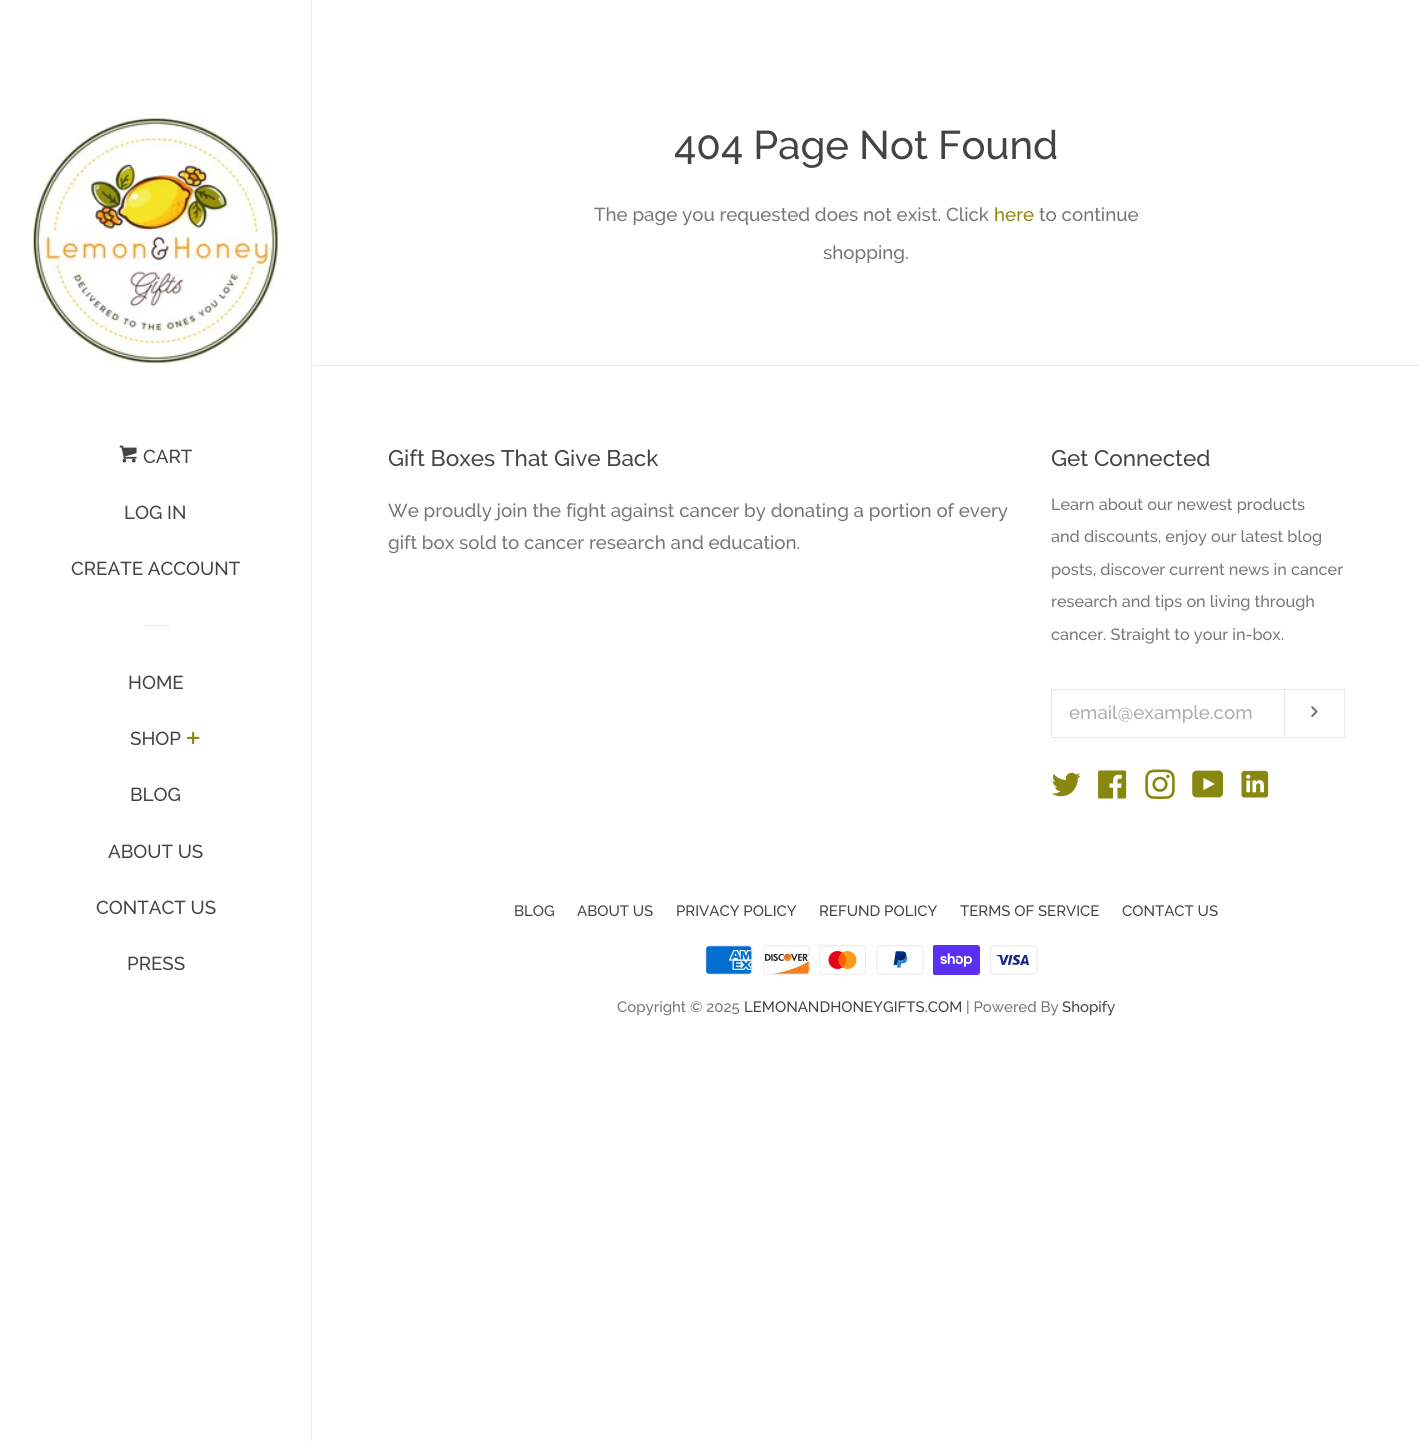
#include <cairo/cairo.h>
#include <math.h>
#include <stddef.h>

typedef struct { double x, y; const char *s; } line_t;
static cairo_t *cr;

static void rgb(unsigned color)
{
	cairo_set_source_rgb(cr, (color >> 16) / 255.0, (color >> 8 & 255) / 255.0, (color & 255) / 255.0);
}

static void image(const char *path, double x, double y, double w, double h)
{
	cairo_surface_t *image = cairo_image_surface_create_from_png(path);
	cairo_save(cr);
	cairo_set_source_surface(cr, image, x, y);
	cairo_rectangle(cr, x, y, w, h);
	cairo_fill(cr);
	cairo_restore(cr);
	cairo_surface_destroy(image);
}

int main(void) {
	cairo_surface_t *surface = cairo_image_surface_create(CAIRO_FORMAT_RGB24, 1419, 1441);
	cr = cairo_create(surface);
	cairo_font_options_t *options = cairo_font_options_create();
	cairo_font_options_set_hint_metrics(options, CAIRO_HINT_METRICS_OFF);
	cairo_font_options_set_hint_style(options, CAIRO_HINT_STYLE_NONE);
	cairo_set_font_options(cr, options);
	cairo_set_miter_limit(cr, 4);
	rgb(0xffffff);
	cairo_paint(cr);
	rgb(0xe7e7e7);
	cairo_rectangle(cr, 311, 0, 1, 1441);
	cairo_fill(cr);
	image("img/1.png", 33, 118, 245, 245);
	image("img/2.png", 119, 445, 18, 18);
	rgb(0xe6e6e6);
	cairo_rectangle(cr, 144, 625, 25, 1);
	cairo_fill(cr);
	image("img/3.png", 187, 731, 13, 14);
	rgb(0xe7e7e7);
	cairo_rectangle(cr, 313, 365, 1106, 1);
	cairo_fill(cr);
	cairo_rectangle(cr, 1051.5, 689.5, 293, 48);
	cairo_set_line_width(cr, 1);
	cairo_stroke(cr);
	cairo_rectangle(cr, 1284, 690, 1, 46);
	cairo_fill(cr);
	image("img/4.png", 1311, 706, 7, 11);
	image("img/5.png", 1052, 772, 29, 25);
	image("img/6.png", 1098, 770, 29, 29);
	image("img/7.png", 1145, 769, 30, 30);
	image("img/8.png", 1192, 770, 31, 28);
	image("img/9.png", 1241, 770, 28, 28);
	image("img/10.png", 705, 945, 48, 30);
	image("img/11.png", 763, 945, 47, 30);
	image("img/12.png", 819, 945, 47, 30);
	image("img/13.png", 876, 945, 48, 30);
	image("img/14.png", 933, 945, 47, 30);
	image("img/15.png", 990, 945, 48, 30);
	cairo_select_font_face(cr, "Raleway Medium", CAIRO_FONT_SLANT_NORMAL, CAIRO_FONT_WEIGHT_NORMAL);
	cairo_set_font_size(cr, 18.75);
	rgb(0x444444);
	{
		static const line_t items[] = {
			{143, 463, "CART"},
			{124, 519, "LOG IN"},
			{71, 575, "CREATE ACCOUNT"},
			{128, 689, "HOME"},
			{130, 745, "SHOP"},
			{130, 801, "BLOG"},
			{108, 858, "ABOUT US"},
			{96, 914, "CONTACT US"},
			{127, 970, "PRESS"},
		};
		for (size_t i = 0; i < sizeof items / sizeof *items; i++) {
			cairo_move_to(cr, items[i].x, items[i].y);
			cairo_show_text(cr, items[i].s);
		}
	}
	cairo_set_font_size(cr, 40);
	cairo_move_to(cr, 674, 159);
	cairo_show_text(cr, "404 Page Not Found");
	cairo_set_font_size(cr, 18.75);
	rgb(0x777777);
	cairo_move_to(cr, 594, 221);
	cairo_show_text(cr, "The page you requested does not exist. Click");
	rgb(0x888810);
	cairo_move_to(cr, 994, 221);
	cairo_show_text(cr, "here");
	rgb(0x777777);
	cairo_move_to(cr, 1039, 221);
	cairo_show_text(cr, "to continue");
	cairo_move_to(cr, 823, 259);
	cairo_show_text(cr, "shopping.");
	cairo_set_font_size(cr, 22.5);
	rgb(0x444444);
	cairo_move_to(cr, 388, 466);
	cairo_show_text(cr, "Gift Boxes That Give Back");
	cairo_set_font_size(cr, 18.75);
	rgb(0x777777);
	cairo_move_to(cr, 388, 517);
	cairo_show_text(cr, "We proudly join the fight against cancer by donating a portion of every");
	cairo_move_to(cr, 388, 549);
	cairo_show_text(cr, "gift box sold to cancer research and education.");
	cairo_set_font_size(cr, 22.5);
	rgb(0x444444);
	cairo_move_to(cr, 1051, 466);
	cairo_show_text(cr, "Get Connected");
	cairo_set_font_size(cr, 16.25);
	rgb(0x777777);
	{
		static const line_t items[] = {
			{1051, 510, "Learn about our newest products"},
			{1051, 542, "and discounts, enjoy our latest blog"},
			{1051, 575, "posts, discover current news in cancer"},
			{1051, 607, "research and tips on living through"},
			{1051, 640, "cancer. Straight to your in-box."},
		};
		for (size_t i = 0; i < sizeof items / sizeof *items; i++) {
			cairo_move_to(cr, items[i].x, items[i].y);
			cairo_show_text(cr, items[i].s);
		}
	}
	cairo_set_font_size(cr, 18.75);
	rgb(0xadadad);
	cairo_move_to(cr, 1069, 719);
	cairo_show_text(cr, "email@example.com");
	cairo_set_font_size(cr, 15);
	rgb(0x444444);
	{
		static const line_t items[] = {
			{514, 916, "BLOG"},
			{577, 916, "ABOUT US"},
			{676, 916, "PRIVACY POLICY"},
			{819, 916, "REFUND POLICY"},
			{960, 916, "TERMS OF SERVICE"},
			{1122, 916, "CONTACT US"},
		};
		for (size_t i = 0; i < sizeof items / sizeof *items; i++) {
			cairo_move_to(cr, items[i].x, items[i].y);
			cairo_show_text(cr, items[i].s);
		}
	}
	rgb(0x777777);
	cairo_move_to(cr, 617, 1012);
	cairo_show_text(cr, "Copyright © 2025");
	rgb(0x444444);
	cairo_move_to(cr, 744, 1012);
	cairo_show_text(cr, "LEMONANDHONEYGIFTS.COM");
	rgb(0x777777);
	cairo_move_to(cr, 966, 1012);
	cairo_show_text(cr, "| Powered By");
	rgb(0x444444);
	cairo_move_to(cr, 1062, 1012);
	cairo_show_text(cr, "Shopify");
	cairo_surface_write_to_png(surface, "page.png");
	cairo_font_options_destroy(options);
	cairo_destroy(cr);
	cairo_surface_destroy(surface);
	return 0;
}
